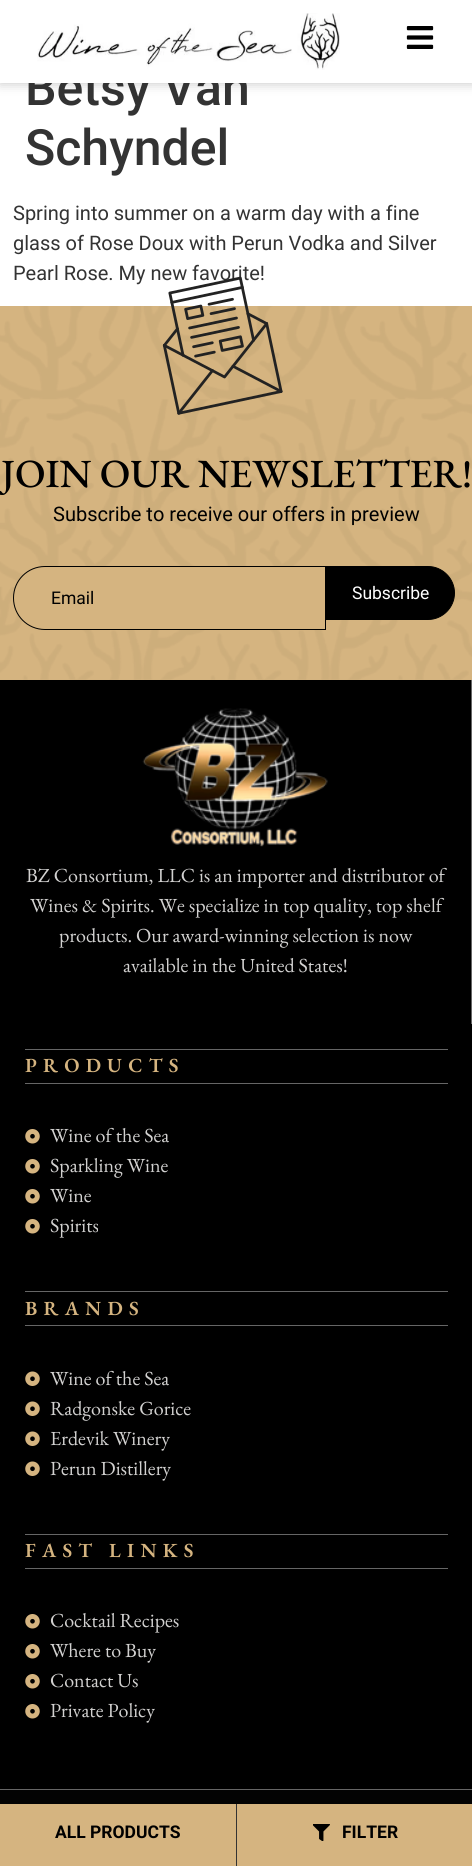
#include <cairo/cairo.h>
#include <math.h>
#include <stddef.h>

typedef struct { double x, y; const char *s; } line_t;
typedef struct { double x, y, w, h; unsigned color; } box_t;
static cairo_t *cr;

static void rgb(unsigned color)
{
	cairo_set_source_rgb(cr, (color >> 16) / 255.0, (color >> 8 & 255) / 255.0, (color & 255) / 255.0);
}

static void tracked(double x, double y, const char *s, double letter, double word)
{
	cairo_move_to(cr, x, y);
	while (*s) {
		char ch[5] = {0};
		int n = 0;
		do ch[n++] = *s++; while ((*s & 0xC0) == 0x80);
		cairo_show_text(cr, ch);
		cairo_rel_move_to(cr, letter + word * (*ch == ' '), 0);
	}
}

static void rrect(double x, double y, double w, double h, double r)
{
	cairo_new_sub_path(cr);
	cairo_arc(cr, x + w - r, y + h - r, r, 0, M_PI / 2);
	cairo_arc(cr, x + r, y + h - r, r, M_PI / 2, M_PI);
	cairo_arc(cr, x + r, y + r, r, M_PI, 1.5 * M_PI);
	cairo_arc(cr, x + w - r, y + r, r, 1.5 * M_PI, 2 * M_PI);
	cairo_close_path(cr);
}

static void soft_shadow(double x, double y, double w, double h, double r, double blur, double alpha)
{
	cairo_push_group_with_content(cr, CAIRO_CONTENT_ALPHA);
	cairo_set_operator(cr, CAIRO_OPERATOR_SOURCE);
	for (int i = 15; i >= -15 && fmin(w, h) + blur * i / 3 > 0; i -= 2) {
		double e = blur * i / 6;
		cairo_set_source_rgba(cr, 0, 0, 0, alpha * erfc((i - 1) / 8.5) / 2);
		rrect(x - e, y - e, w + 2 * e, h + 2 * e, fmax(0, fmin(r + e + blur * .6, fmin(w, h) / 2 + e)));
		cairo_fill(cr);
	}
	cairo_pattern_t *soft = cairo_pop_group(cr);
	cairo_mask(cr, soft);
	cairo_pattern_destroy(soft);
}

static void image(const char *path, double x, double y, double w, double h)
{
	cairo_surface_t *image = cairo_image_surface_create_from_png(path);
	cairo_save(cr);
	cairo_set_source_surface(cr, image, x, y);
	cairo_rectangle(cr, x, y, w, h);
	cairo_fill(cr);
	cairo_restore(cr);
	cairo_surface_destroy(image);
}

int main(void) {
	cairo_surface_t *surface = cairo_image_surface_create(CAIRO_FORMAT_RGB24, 472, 1866);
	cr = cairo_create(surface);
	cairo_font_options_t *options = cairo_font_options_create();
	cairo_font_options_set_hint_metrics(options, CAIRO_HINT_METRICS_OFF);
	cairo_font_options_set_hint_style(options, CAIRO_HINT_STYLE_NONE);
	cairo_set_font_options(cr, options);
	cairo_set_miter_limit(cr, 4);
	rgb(0xffffff);
	cairo_paint(cr);
	rgb(0x000000);
	soft_shadow(0, 0, 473, 83, 0, 6, 0.24);
	rgb(0xd5b480);
	cairo_rectangle(cr, 0, 306, 472, 374);
	cairo_fill(cr);
	image("img/3.png", 0, 306, 472, 374);
	cairo_new_path(cr);
	cairo_move_to(cr, 45, 566.5);
	cairo_line_to(cr, 325.5, 566.5);
	cairo_line_to(cr, 325.5, 629.5);
	cairo_line_to(cr, 45, 629.5);
	cairo_curve_to(cr, 27.5, 629.5, 13.5, 615.5, 13.5, 598);
	cairo_curve_to(cr, 13.5, 580.5, 27.5, 566.5, 45, 566.5);
	cairo_close_path(cr);
	cairo_fill_preserve(cr);
	rgb(0x000000);
	cairo_set_line_width(cr, 1);
	cairo_stroke(cr);
	cairo_new_path(cr);
	cairo_move_to(cr, 326.5, 566.5);
	cairo_line_to(cr, 428, 566.5);
	cairo_curve_to(cr, 442.5, 566.5, 454.5, 578.5, 454.5, 593);
	cairo_curve_to(cr, 454.5, 607.5, 442.5, 619.5, 428, 619.5);
	cairo_line_to(cr, 326.5, 619.5);
	cairo_close_path(cr);
	cairo_fill_preserve(cr);
	cairo_stroke(cr);
	cairo_rectangle(cr, 0, 680, 472, 1109);
	cairo_fill(cr);
	rgb(0x666666);
	cairo_rectangle(cr, 471, 680, 1, 344);
	cairo_fill(cr);
	image("img/5.png", 142, 708, 186, 139);
	cairo_rectangle(cr, 25, 1049, 423, 1);
	cairo_fill(cr);
	cairo_rectangle(cr, 25, 1083, 423, 1);
	cairo_fill(cr);
	image("img/6.png", 25, 1129, 15, 15);
	image("img/6.png", 25, 1159, 15, 15);
	image("img/6.png", 25, 1189, 15, 15);
	image("img/6.png", 25, 1219, 15, 15);
	cairo_rectangle(cr, 25, 1291, 423, 1);
	cairo_fill(cr);
	cairo_rectangle(cr, 25, 1325, 423, 1);
	cairo_fill(cr);
	image("img/7.png", 25, 1371, 15, 15);
	image("img/7.png", 25, 1401, 15, 15);
	image("img/7.png", 25, 1431, 15, 15);
	image("img/7.png", 25, 1461, 15, 15);
	cairo_rectangle(cr, 25, 1534, 423, 1);
	cairo_fill(cr);
	cairo_rectangle(cr, 25, 1568, 423, 1);
	cairo_fill(cr);
	image("img/6.png", 25, 1614, 15, 15);
	image("img/6.png", 25, 1644, 15, 15);
	image("img/6.png", 25, 1674, 15, 15);
	image("img/6.png", 25, 1704, 15, 15);
	{
		static const box_t items[] = {
			{0, 1790, 472, 14, 0x030303},
			{0, 1789, 472, 1, 0x666666},
			{0, 1804, 472, 62, 0xd5b480},
			{236, 1804, 1, 62, 0x333333},
		};
		for (size_t i = 0; i < sizeof items / sizeof *items; i++) {
			rgb(items[i].color);
			cairo_rectangle(cr, items[i].x, items[i].y, items[i].w, items[i].h);
			cairo_fill(cr);
		}
	}
	image("img/8.png", 313, 1824, 17, 17);
	cairo_select_font_face(cr, "Roboto Medium", CAIRO_FONT_SLANT_NORMAL, CAIRO_FONT_WEIGHT_NORMAL);
	cairo_set_font_size(cr, 50);
	cairo_move_to(cr, 25, 105);
	cairo_show_text(cr, "Betsy Van");
	rgb(0xffffff);
	cairo_rectangle(cr, 0, 0, 472, 83);
	cairo_fill(cr);
	image("img/2.png", 406, 26, 28, 23);
	image("img/1.png", 37, 13, 303, 57);
	rgb(0x333333);
	cairo_move_to(cr, 25, 165);
	cairo_show_text(cr, "Schyndel");
	cairo_select_font_face(cr, "Roboto", CAIRO_FONT_SLANT_NORMAL, CAIRO_FONT_WEIGHT_NORMAL);
	cairo_set_font_size(cr, 20);
	{
		static const line_t items[] = {
			{13, 220, "Spring into summer on a warm day with a fine"},
			{13, 250, "glass of Rose Doux with Perun Vodka and Silver"},
			{13, 280, "Pearl Rose. My new favorite!"},
		};
		for (size_t i = 0; i < sizeof items / sizeof *items; i++) {
			cairo_move_to(cr, items[i].x, items[i].y);
			cairo_show_text(cr, items[i].s);
		}
	}
	image("img/4.png", 162, 276, 121, 139);
	cairo_select_font_face(cr, "EB Garamond Medium", CAIRO_FONT_SLANT_NORMAL, CAIRO_FONT_WEIGHT_NORMAL);
	cairo_set_font_size(cr, 40);
	rgb(0x000000);
	cairo_move_to(cr, 1, 487);
	cairo_show_text(cr, "JOIN OUR NEWSLETTER!");
	cairo_select_font_face(cr, "Roboto", CAIRO_FONT_SLANT_NORMAL, CAIRO_FONT_WEIGHT_NORMAL);
	cairo_set_font_size(cr, 20);
	cairo_move_to(cr, 53, 521);
	cairo_show_text(cr, "Subscribe to receive our offers in preview");
	cairo_set_font_size(cr, 17.5);
	cairo_move_to(cr, 51, 604);
	cairo_show_text(cr, "Email");
	rgb(0xffffff);
	cairo_move_to(cr, 352, 599);
	cairo_show_text(cr, "Subscribe");
	cairo_select_font_face(cr, "EB Garamond", CAIRO_FONT_SLANT_NORMAL, CAIRO_FONT_WEIGHT_NORMAL);
	cairo_set_font_size(cr, 20);
	rgb(0xd2d1d0);
	{
		static const line_t items[] = {
			{26, 882, "BZ Consortium, LLC is an importer and distributor of"},
			{30, 912, "Wines & Spirits. We specialize in top quality, top shelf"},
			{59, 942, "products. Our award-winning selection is now"},
			{123, 972, "available in the United States!"},
		};
		for (size_t i = 0; i < sizeof items / sizeof *items; i++) {
			cairo_move_to(cr, items[i].x, items[i].y);
			cairo_show_text(cr, items[i].s);
		}
	}
	cairo_select_font_face(cr, "EB Garamond SemiBold", CAIRO_FONT_SLANT_NORMAL, CAIRO_FONT_WEIGHT_NORMAL);
	rgb(0xd5b480);
	tracked(25, 1072, "PRODUCTS", 6.25, 0);
	cairo_select_font_face(cr, "EB Garamond", CAIRO_FONT_SLANT_NORMAL, CAIRO_FONT_WEIGHT_NORMAL);
	rgb(0xd2d1d0);
	{
		static const line_t items[] = {
			{50, 1142, "Wine of the Sea"},
			{50, 1172, "Sparkling Wine"},
			{50, 1202, "Wine"},
			{50, 1232, "Spirits"},
		};
		for (size_t i = 0; i < sizeof items / sizeof *items; i++) {
			cairo_move_to(cr, items[i].x, items[i].y);
			cairo_show_text(cr, items[i].s);
		}
	}
	cairo_select_font_face(cr, "EB Garamond SemiBold", CAIRO_FONT_SLANT_NORMAL, CAIRO_FONT_WEIGHT_NORMAL);
	rgb(0xd5b480);
	tracked(25, 1315, "BRANDS", 6.25, 0);
	cairo_select_font_face(cr, "EB Garamond", CAIRO_FONT_SLANT_NORMAL, CAIRO_FONT_WEIGHT_NORMAL);
	rgb(0xd2d1d0);
	{
		static const line_t items[] = {
			{50, 1385, "Wine of the Sea"},
			{50, 1415, "Radgonske Gorice"},
			{50, 1445, "Erdevik Winery"},
			{50, 1475, "Perun Distillery"},
		};
		for (size_t i = 0; i < sizeof items / sizeof *items; i++) {
			cairo_move_to(cr, items[i].x, items[i].y);
			cairo_show_text(cr, items[i].s);
		}
	}
	cairo_select_font_face(cr, "EB Garamond SemiBold", CAIRO_FONT_SLANT_NORMAL, CAIRO_FONT_WEIGHT_NORMAL);
	rgb(0xd5b480);
	tracked(25, 1557, "FAST LINKS", 6.25, 0);
	cairo_select_font_face(cr, "EB Garamond", CAIRO_FONT_SLANT_NORMAL, CAIRO_FONT_WEIGHT_NORMAL);
	rgb(0xd2d1d0);
	{
		static const line_t items[] = {
			{50, 1627, "Cocktail Recipes"},
			{50, 1657, "Where to Buy"},
			{50, 1687, "Contact Us"},
			{50, 1717, "Private Policy"},
		};
		for (size_t i = 0; i < sizeof items / sizeof *items; i++) {
			cairo_move_to(cr, items[i].x, items[i].y);
			cairo_show_text(cr, items[i].s);
		}
	}
	cairo_select_font_face(cr, "Roboto", CAIRO_FONT_SLANT_NORMAL, CAIRO_FONT_WEIGHT_BOLD);
	cairo_set_font_size(cr, 17.5);
	rgb(0x000000);
	cairo_move_to(cr, 55, 1838);
	cairo_show_text(cr, "ALL PRODUCTS");
	cairo_move_to(cr, 342, 1838);
	cairo_show_text(cr, "FILTER");
	cairo_surface_write_to_png(surface, "page.png");
	cairo_font_options_destroy(options);
	cairo_destroy(cr);
	cairo_surface_destroy(surface);
	return 0;
}
